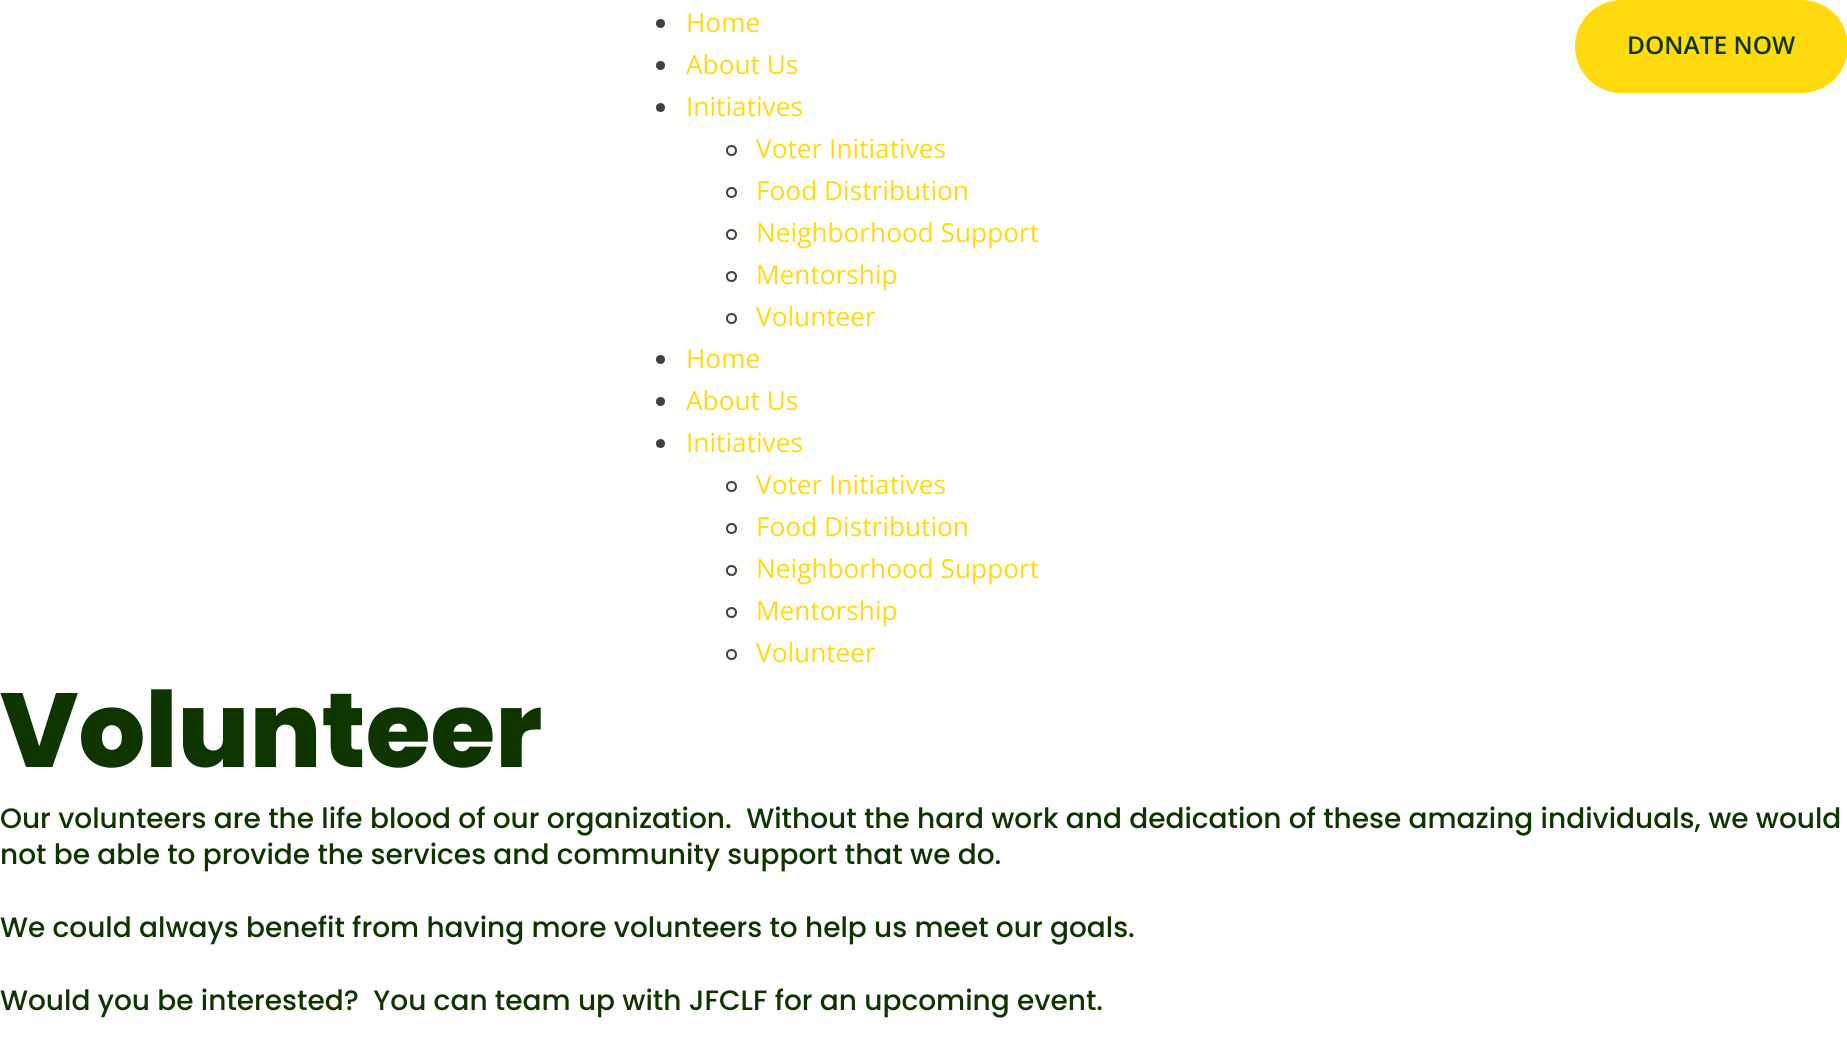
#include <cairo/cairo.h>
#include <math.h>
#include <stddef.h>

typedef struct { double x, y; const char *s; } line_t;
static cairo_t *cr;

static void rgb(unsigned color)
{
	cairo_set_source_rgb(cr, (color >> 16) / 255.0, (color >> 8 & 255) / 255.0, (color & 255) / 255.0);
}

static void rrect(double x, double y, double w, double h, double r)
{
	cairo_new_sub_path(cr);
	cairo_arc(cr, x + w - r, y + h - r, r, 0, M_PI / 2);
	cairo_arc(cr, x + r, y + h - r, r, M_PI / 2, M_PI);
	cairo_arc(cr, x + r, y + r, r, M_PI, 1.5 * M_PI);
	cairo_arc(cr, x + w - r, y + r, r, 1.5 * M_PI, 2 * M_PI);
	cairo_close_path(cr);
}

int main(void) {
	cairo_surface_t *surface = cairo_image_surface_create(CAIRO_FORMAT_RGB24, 1847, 1047);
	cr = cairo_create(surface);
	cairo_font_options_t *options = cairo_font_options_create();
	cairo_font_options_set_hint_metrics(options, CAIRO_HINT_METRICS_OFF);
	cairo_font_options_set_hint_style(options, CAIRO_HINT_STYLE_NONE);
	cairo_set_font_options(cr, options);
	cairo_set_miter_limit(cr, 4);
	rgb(0xffffff);
	cairo_paint(cr);
	rgb(0x414141);
	cairo_arc(cr, 660.5, 23.5, 4.5, 0, 2 * M_PI);
	cairo_fill(cr);
	cairo_arc(cr, 660.5, 65.5, 4.5, 0, 2 * M_PI);
	cairo_fill(cr);
	cairo_arc(cr, 660.5, 107.5, 4.5, 0, 2 * M_PI);
	cairo_fill(cr);
	cairo_arc(cr, 731.5, 150.5, 4.5, 0, 2 * M_PI);
	cairo_stroke(cr);
	cairo_arc(cr, 731.5, 192.5, 4.5, 0, 2 * M_PI);
	cairo_stroke(cr);
	cairo_arc(cr, 731.5, 234.5, 4.5, 0, 2 * M_PI);
	cairo_stroke(cr);
	cairo_arc(cr, 731.5, 276.5, 4.5, 0, 2 * M_PI);
	cairo_stroke(cr);
	cairo_arc(cr, 731.5, 318.5, 4.5, 0, 2 * M_PI);
	cairo_stroke(cr);
	cairo_arc(cr, 660.5, 359.5, 4.5, 0, 2 * M_PI);
	cairo_fill(cr);
	cairo_arc(cr, 660.5, 401.5, 4.5, 0, 2 * M_PI);
	cairo_fill(cr);
	cairo_arc(cr, 660.5, 443.5, 4.5, 0, 2 * M_PI);
	cairo_fill(cr);
	cairo_arc(cr, 731.5, 486.5, 4.5, 0, 2 * M_PI);
	cairo_stroke(cr);
	cairo_arc(cr, 731.5, 528.5, 4.5, 0, 2 * M_PI);
	cairo_stroke(cr);
	cairo_arc(cr, 731.5, 570.5, 4.5, 0, 2 * M_PI);
	cairo_stroke(cr);
	cairo_arc(cr, 731.5, 612.5, 4.5, 0, 2 * M_PI);
	cairo_stroke(cr);
	cairo_arc(cr, 731.5, 654.5, 4.5, 0, 2 * M_PI);
	cairo_stroke(cr);
	rgb(0xffda0f);
	rrect(1575, 0, 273, 93, 46.5);
	cairo_fill(cr);
	cairo_select_font_face(cr, "Open Sans", CAIRO_FONT_SLANT_NORMAL, CAIRO_FONT_WEIGHT_NORMAL);
	cairo_set_font_size(cr, 26.25);
	{
		static const line_t items[] = {
			{686, 32, "Home"},
			{686, 74, "About Us"},
			{686, 116, "Initiatives"},
			{756, 158, "Voter Initiatives"},
			{756, 200, "Food Distribution"},
			{756, 242, "Neighborhood Support"},
			{756, 284, "Mentorship"},
			{756, 326, "Volunteer"},
			{686, 368, "Home"},
			{686, 410, "About Us"},
			{686, 452, "Initiatives"},
			{756, 494, "Voter Initiatives"},
			{756, 536, "Food Distribution"},
			{756, 578, "Neighborhood Support"},
			{756, 620, "Mentorship"},
			{756, 662, "Volunteer"},
		};
		for (size_t i = 0; i < sizeof items / sizeof *items; i++) {
			cairo_move_to(cr, items[i].x, items[i].y);
			cairo_show_text(cr, items[i].s);
		}
	}
	cairo_select_font_face(cr, "Open Sans SemiBold", CAIRO_FONT_SLANT_NORMAL, CAIRO_FONT_WEIGHT_NORMAL);
	cairo_set_font_size(cr, 24.5);
	rgb(0x0e3500);
	cairo_move_to(cr, 1627, 54);
	cairo_show_text(cr, "DONATE NOW");
	cairo_select_font_face(cr, "Poppins ExtraBold", CAIRO_FONT_SLANT_NORMAL, CAIRO_FONT_WEIGHT_NORMAL);
	cairo_set_font_size(cr, 105);
	cairo_move_to(cr, 0, 767);
	cairo_show_text(cr, "Volunteer");
	cairo_select_font_face(cr, "Poppins Medium", CAIRO_FONT_SLANT_NORMAL, CAIRO_FONT_WEIGHT_NORMAL);
	cairo_set_font_size(cr, 28);
	{
		static const line_t items[] = {
			{0, 828, "Our volunteers are the life blood of our organization.  Without the hard work and dedication of these amazing individuals, we would"},
			{0, 864, "not be able to provide the services and community support that we do."},
			{0, 937, "We could always benefit from having more volunteers to help us meet our goals."},
			{0, 1010, "Would you be interested?  You can team up with JFCLF for an upcoming event."},
		};
		for (size_t i = 0; i < sizeof items / sizeof *items; i++) {
			cairo_move_to(cr, items[i].x, items[i].y);
			cairo_show_text(cr, items[i].s);
		}
	}
	cairo_surface_write_to_png(surface, "page.png");
	cairo_font_options_destroy(options);
	cairo_destroy(cr);
	cairo_surface_destroy(surface);
	return 0;
}
